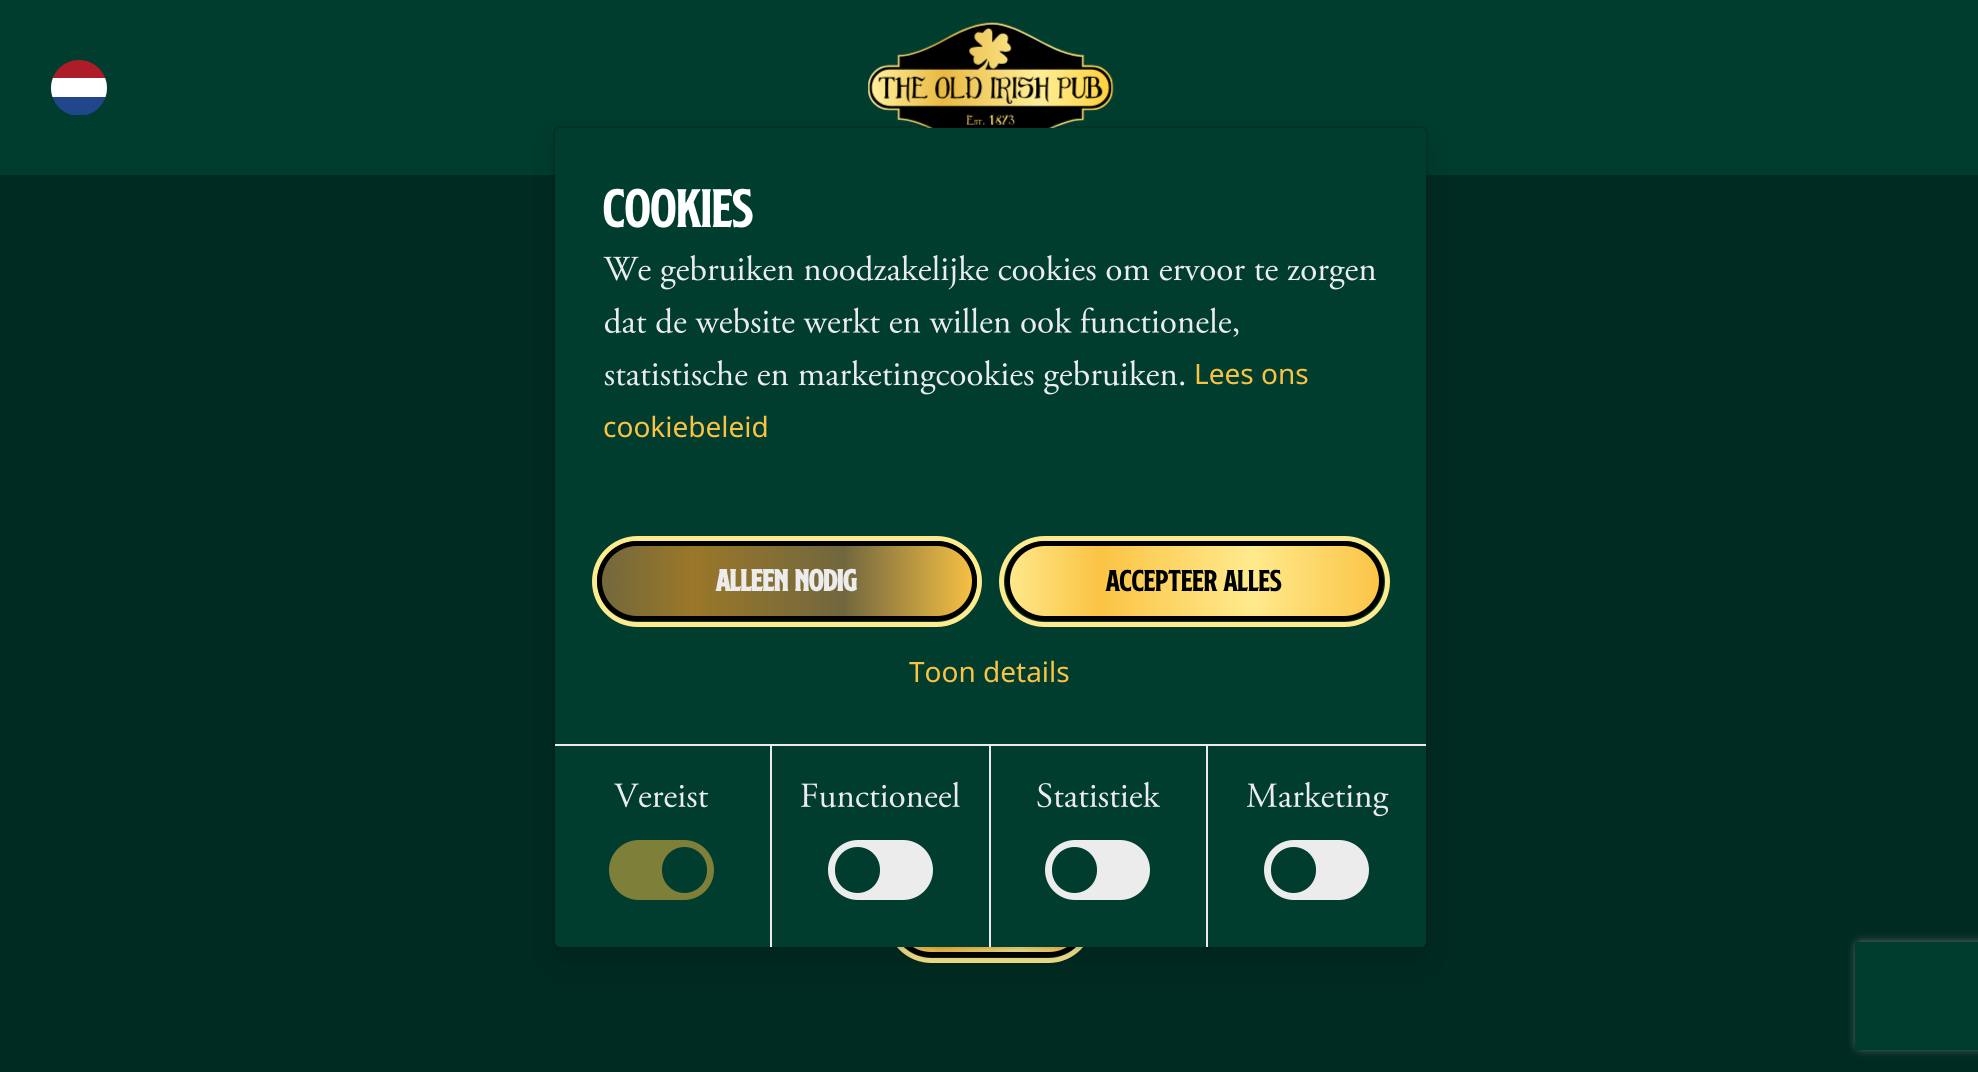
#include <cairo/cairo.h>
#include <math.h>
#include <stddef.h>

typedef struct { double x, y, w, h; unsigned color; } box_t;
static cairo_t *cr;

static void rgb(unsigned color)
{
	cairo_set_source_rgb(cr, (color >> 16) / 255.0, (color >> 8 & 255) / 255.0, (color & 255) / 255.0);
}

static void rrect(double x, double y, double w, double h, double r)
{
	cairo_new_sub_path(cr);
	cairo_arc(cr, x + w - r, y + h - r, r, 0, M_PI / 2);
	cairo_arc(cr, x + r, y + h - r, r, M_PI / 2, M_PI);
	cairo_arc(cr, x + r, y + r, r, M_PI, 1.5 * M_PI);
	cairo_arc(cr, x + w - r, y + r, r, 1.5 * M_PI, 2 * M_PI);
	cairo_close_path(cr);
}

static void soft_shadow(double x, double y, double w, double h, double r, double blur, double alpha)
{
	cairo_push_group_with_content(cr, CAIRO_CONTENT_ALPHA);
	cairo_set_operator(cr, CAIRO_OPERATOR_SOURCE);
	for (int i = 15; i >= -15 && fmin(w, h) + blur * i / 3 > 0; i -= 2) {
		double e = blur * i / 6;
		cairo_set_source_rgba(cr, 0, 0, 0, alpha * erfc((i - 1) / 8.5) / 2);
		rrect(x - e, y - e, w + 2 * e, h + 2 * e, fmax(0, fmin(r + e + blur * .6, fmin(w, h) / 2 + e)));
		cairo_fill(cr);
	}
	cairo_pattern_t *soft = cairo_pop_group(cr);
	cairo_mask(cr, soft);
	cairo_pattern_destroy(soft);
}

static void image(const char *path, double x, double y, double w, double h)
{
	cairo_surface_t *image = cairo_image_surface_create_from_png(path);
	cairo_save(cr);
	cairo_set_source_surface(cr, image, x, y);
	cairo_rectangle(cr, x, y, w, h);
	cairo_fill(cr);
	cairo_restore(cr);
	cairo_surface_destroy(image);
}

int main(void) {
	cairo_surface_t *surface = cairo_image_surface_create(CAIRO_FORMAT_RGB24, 1978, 1072);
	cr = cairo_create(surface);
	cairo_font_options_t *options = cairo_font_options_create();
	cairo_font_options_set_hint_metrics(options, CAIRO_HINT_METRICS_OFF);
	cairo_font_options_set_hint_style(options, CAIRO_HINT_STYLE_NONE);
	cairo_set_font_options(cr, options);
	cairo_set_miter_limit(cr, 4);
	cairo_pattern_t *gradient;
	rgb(0x003d2e);
	cairo_paint(cr);
	cairo_save(cr);
	rrect(51, 60, 56, 56, 28);
	cairo_clip(cr);
	{
		static const box_t items[] = {
			{52, 60, 54, 18, 0xae1c28},
			{51, 78, 56, 19, 0xffffff},
			{52, 97, 54, 18, 0x21468b},
		};
		for (size_t i = 0; i < sizeof items / sizeof *items; i++) {
			rgb(items[i].color);
			cairo_rectangle(cr, items[i].x, items[i].y, items[i].w, items[i].h);
			cairo_fill(cr);
		}
	}
	cairo_restore(cr);
	image("img/1.png", 868, 22, 246, 106);
	rgb(0x002b21);
	cairo_rectangle(cr, 0, 175, 1978, 897);
	cairo_fill(cr);
	rrect(888.5, 874.5, 203, 86, 43);
	rgb(0xffea8d);
	cairo_set_line_width(cr, 5);
	cairo_stroke(cr);
	gradient = cairo_pattern_create_linear(891, 917, 1089, 917);
	cairo_pattern_add_color_stop_rgba(gradient, 0, 1, 0.918, 0.553, 1);
	cairo_pattern_add_color_stop_rgba(gradient, 0.25, 0.984, 0.765, 0.267, 1);
	cairo_pattern_add_color_stop_rgba(gradient, 0.65, 1, 0.918, 0.553, 1);
	cairo_pattern_add_color_stop_rgba(gradient, 1, 0.984, 0.765, 0.267, 1);
	cairo_set_source(cr, gradient);
	cairo_pattern_destroy(gradient);
	rrect(893.5, 879.5, 193, 75, 37.5);
	cairo_fill_preserve(cr);
	rgb(0x000000);
	cairo_stroke(cr);
	cairo_save(cr);
	cairo_set_fill_rule(cr, CAIRO_FILL_RULE_EVEN_ODD);
	cairo_new_path(cr);
	cairo_move_to(cr, 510, 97);
	cairo_line_to(cr, 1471, 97);
	cairo_line_to(cr, 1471, 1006);
	cairo_line_to(cr, 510, 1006);
	cairo_close_path(cr);
	cairo_move_to(cr, 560, 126);
	cairo_line_to(cr, 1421, 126);
	cairo_curve_to(cr, 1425, 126, 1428, 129, 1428, 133);
	cairo_line_to(cr, 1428, 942);
	cairo_curve_to(cr, 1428, 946, 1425, 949, 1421, 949);
	cairo_line_to(cr, 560, 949);
	cairo_curve_to(cr, 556, 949, 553, 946, 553, 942);
	cairo_line_to(cr, 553, 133);
	cairo_curve_to(cr, 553, 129, 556, 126, 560, 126);
	cairo_close_path(cr);
	cairo_clip(cr);
	rgb(0x000000);
	soft_shadow(553, 140, 875, 823, 7, 14, 0.15);
	cairo_restore(cr);
	rgb(0x003d2e);
	rrect(555, 128, 871, 819, 5);
	cairo_fill(cr);
	rrect(554, 127, 873, 821, 6);
	cairo_set_source_rgba(cr, 0, 0, 0, 0.18);
	cairo_set_line_width(cr, 2);
	cairo_stroke(cr);
	image("img/2.png", 603, 255, 773, 35);
	image("img/3.png", 605, 307, 634, 30);
	image("img/4.png", 604, 360, 581, 35);
	rrect(594.5, 538.5, 385, 86, 43);
	rgb(0xffea8d);
	cairo_set_line_width(cr, 5);
	cairo_stroke(cr);
	gradient = cairo_pattern_create_linear(597, 581, 977, 581);
	cairo_pattern_add_color_stop_rgba(gradient, 0, 0.443, 0.404, 0.243, 1);
	cairo_pattern_add_color_stop_rgba(gradient, 0.25, 0.604, 0.467, 0.161, 1);
	cairo_pattern_add_color_stop_rgba(gradient, 0.65, 0.443, 0.404, 0.243, 1);
	cairo_pattern_add_color_stop_rgba(gradient, 1, 0.984, 0.765, 0.267, 1);
	cairo_set_source(cr, gradient);
	cairo_pattern_destroy(gradient);
	rrect(599.5, 543.5, 375, 75, 37.5);
	cairo_fill_preserve(cr);
	rgb(0x000000);
	cairo_stroke(cr);
	rrect(1001.5, 538.5, 386, 86, 43);
	rgb(0xffea8d);
	cairo_stroke(cr);
	gradient = cairo_pattern_create_linear(1005, 581, 1384, 581);
	cairo_pattern_add_color_stop_rgba(gradient, 0, 1, 0.918, 0.553, 1);
	cairo_pattern_add_color_stop_rgba(gradient, 0.25, 0.984, 0.765, 0.267, 1);
	cairo_pattern_add_color_stop_rgba(gradient, 0.65, 1, 0.918, 0.553, 1);
	cairo_pattern_add_color_stop_rgba(gradient, 1, 0.984, 0.765, 0.267, 1);
	cairo_set_source(cr, gradient);
	cairo_pattern_destroy(gradient);
	rrect(1007.5, 543.5, 374, 75, 37.5);
	cairo_fill_preserve(cr);
	rgb(0x000000);
	cairo_stroke(cr);
	rgb(0xececec);
	cairo_rectangle(cr, 555, 744, 871, 2);
	cairo_fill(cr);
	cairo_rectangle(cr, 770, 746, 2, 201);
	cairo_fill(cr);
	image("img/5.png", 614, 783, 95, 25);
	rgb(0x7e8039);
	rrect(609, 840, 105, 60, 30);
	cairo_fill(cr);
	rgb(0x003d2e);
	rrect(662, 847, 45, 46, 22.5);
	cairo_fill(cr);
	rgb(0xececec);
	cairo_rectangle(cr, 989, 746, 2, 201);
	cairo_fill(cr);
	image("img/6.png", 801, 781, 159, 27);
	rrect(828, 840, 105, 60, 30);
	cairo_fill(cr);
	rgb(0x003d2e);
	rrect(835, 847, 45, 46, 22.5);
	cairo_fill(cr);
	rgb(0xececec);
	cairo_rectangle(cr, 1206, 746, 2, 201);
	cairo_fill(cr);
	image("img/7.png", 1037, 781, 124, 27);
	rrect(1045, 840, 105, 60, 30);
	cairo_fill(cr);
	rgb(0x003d2e);
	rrect(1052, 847, 45, 46, 22.5);
	cairo_fill(cr);
	image("img/8.png", 1246, 781, 143, 36);
	rgb(0xececec);
	rrect(1264, 840, 105, 60, 30);
	cairo_fill(cr);
	rgb(0x003d2e);
	rrect(1271, 847, 45, 46, 22.5);
	cairo_fill(cr);
	rgb(0x808080);
	soft_shadow(1857, 943, 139, 105, 4, 4.5, 1);
	rgb(0x003d2e);
	cairo_rectangle(cr, 1855, 942, 123, 108);
	cairo_fill(cr);
	cairo_select_font_face(cr, "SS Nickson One", CAIRO_FONT_SLANT_NORMAL, CAIRO_FONT_WEIGHT_NORMAL);
	cairo_set_font_size(cr, 63);
	rgb(0xffffff);
	cairo_move_to(cr, 603, 227);
	cairo_show_text(cr, "Cookies");
	cairo_select_font_face(cr, "Noto Sans", CAIRO_FONT_SLANT_NORMAL, CAIRO_FONT_WEIGHT_NORMAL);
	cairo_set_font_size(cr, 28);
	rgb(0xfbc243);
	cairo_move_to(cr, 1194, 384);
	cairo_show_text(cr, "Lees ons");
	cairo_move_to(cr, 603, 437);
	cairo_show_text(cr, "cookiebeleid");
	cairo_select_font_face(cr, "SS Nickson One", CAIRO_FONT_SLANT_NORMAL, CAIRO_FONT_WEIGHT_BOLD);
	cairo_set_font_size(cr, 35);
	rgb(0xececec);
	cairo_move_to(cr, 716, 591);
	cairo_show_text(cr, "Alleen nodig");
	cairo_select_font_face(cr, "SS Nickson One", CAIRO_FONT_SLANT_NORMAL, CAIRO_FONT_WEIGHT_NORMAL);
	rgb(0x000000);
	cairo_move_to(cr, 1106, 591);
	cairo_show_text(cr, "Accepteer alles");
	cairo_select_font_face(cr, "Noto Sans", CAIRO_FONT_SLANT_NORMAL, CAIRO_FONT_WEIGHT_NORMAL);
	cairo_set_font_size(cr, 28);
	rgb(0xfbc243);
	cairo_move_to(cr, 909, 682);
	cairo_show_text(cr, "Toon details");
	cairo_surface_write_to_png(surface, "page.png");
	cairo_font_options_destroy(options);
	cairo_destroy(cr);
	cairo_surface_destroy(surface);
	return 0;
}
